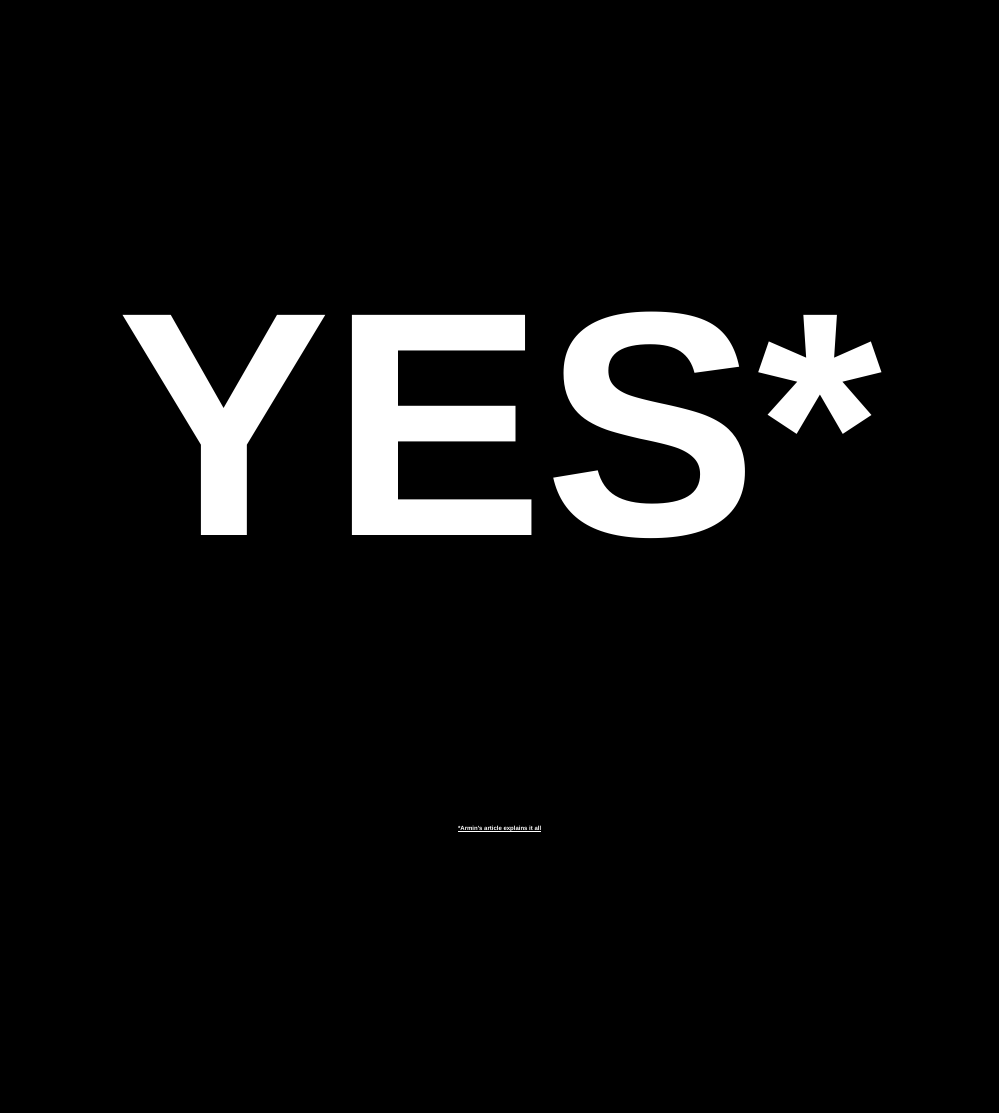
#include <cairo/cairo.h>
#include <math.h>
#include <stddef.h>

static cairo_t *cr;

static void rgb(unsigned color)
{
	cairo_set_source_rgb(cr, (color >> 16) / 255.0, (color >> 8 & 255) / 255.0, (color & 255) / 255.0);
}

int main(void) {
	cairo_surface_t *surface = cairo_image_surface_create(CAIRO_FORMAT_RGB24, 999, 1113);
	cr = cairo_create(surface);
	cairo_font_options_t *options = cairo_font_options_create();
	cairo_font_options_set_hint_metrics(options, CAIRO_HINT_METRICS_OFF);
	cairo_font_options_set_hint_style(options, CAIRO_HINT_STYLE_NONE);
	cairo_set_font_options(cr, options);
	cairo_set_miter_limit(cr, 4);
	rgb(0x000000);
	cairo_paint(cr);
	rgb(0xffffff);
	cairo_rectangle(cr, 458, 831, 83, 1);
	cairo_fill(cr);
	cairo_select_font_face(cr, "Liberation Sans", CAIRO_FONT_SLANT_NORMAL, CAIRO_FONT_WEIGHT_BOLD);
	cairo_set_font_size(cr, 320);
	cairo_move_to(cr, 117, 535);
	cairo_show_text(cr, "YES*");
	cairo_set_font_size(cr, 6);
	cairo_move_to(cr, 458, 830);
	cairo_show_text(cr, "*Armin's article explains it all");
	cairo_surface_write_to_png(surface, "page.png");
	cairo_font_options_destroy(options);
	cairo_destroy(cr);
	cairo_surface_destroy(surface);
	return 0;
}
